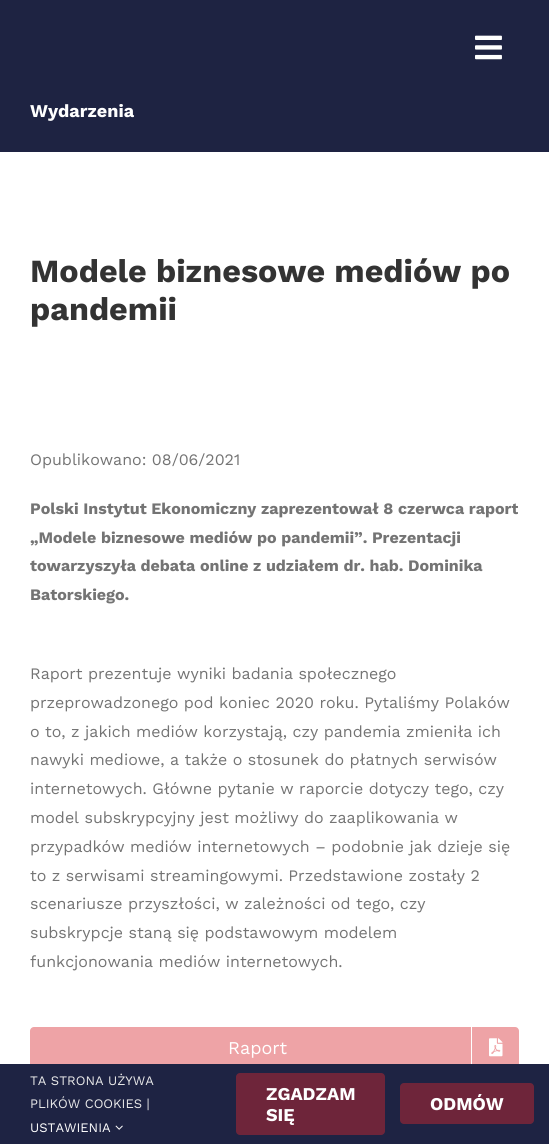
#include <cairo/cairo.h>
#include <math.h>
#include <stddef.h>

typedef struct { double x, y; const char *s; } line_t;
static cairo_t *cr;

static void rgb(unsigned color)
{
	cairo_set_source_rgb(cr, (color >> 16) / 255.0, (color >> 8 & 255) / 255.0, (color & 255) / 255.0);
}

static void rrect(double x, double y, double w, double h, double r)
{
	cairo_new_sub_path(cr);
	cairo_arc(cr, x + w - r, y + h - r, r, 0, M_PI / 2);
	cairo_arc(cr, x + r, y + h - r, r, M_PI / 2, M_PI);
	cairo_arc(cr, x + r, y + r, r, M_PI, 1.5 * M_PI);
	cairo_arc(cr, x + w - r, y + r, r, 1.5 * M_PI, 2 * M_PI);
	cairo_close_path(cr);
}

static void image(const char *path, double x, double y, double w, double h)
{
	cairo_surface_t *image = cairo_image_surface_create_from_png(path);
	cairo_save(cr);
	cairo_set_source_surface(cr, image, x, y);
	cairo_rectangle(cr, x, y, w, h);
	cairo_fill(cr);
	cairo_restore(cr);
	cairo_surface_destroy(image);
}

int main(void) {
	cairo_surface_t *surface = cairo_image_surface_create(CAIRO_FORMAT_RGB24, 549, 1144);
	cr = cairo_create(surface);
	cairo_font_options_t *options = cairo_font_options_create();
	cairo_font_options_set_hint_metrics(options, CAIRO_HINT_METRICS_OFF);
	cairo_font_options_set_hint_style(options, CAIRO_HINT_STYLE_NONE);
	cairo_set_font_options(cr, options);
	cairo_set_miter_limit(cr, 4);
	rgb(0xffffff);
	cairo_paint(cr);
	rgb(0x1e2342);
	cairo_rectangle(cr, 0, 0, 549, 152);
	cairo_fill(cr);
	image("img/1.png", 475, 35, 27, 25);
	rgb(0xeea3a6);
	rrect(30, 1027, 489, 41, 4);
	cairo_fill(cr);
	rgb(0xffffff);
	cairo_rectangle(cr, 471, 1027, 1, 41);
	cairo_fill(cr);
	image("img/2.png", 489, 1038, 14, 19);
	rgb(0x1e2343);
	cairo_rectangle(cr, 0, 1064, 549, 80);
	cairo_fill(cr);
	image("img/3.png", 115, 1125, 8, 5);
	rgb(0x6e253a);
	rrect(236, 1073, 149, 62, 4);
	cairo_fill(cr);
	rrect(400, 1083, 134, 41, 4);
	cairo_fill(cr);
	cairo_select_font_face(cr, "Work Sans", CAIRO_FONT_SLANT_NORMAL, CAIRO_FONT_WEIGHT_BOLD);
	cairo_set_font_size(cr, 18);
	rgb(0xffffff);
	cairo_move_to(cr, 30, 117);
	cairo_show_text(cr, "Wydarzenia");
	cairo_set_font_size(cr, 32.25);
	rgb(0x333333);
	cairo_move_to(cr, 30, 282);
	cairo_show_text(cr, "Modele biznesowe mediów po");
	cairo_move_to(cr, 30, 320);
	cairo_show_text(cr, "pandemii");
	cairo_select_font_face(cr, "Work Sans", CAIRO_FONT_SLANT_NORMAL, CAIRO_FONT_WEIGHT_NORMAL);
	cairo_set_font_size(cr, 16);
	rgb(0x747474);
	cairo_move_to(cr, 30, 465);
	cairo_show_text(cr, "Opublikowano: 08/06/2021");
	cairo_select_font_face(cr, "Work Sans", CAIRO_FONT_SLANT_NORMAL, CAIRO_FONT_WEIGHT_BOLD);
	{
		static const line_t items[] = {
			{30, 514, "Polski Instytut Ekonomiczny zaprezentował 8 czerwca raport"},
			{30, 543, "„Modele biznesowe mediów po pandemii”. Prezentacji"},
			{30, 571, "towarzyszyła debata online z udziałem dr. hab. Dominika"},
			{30, 600, "Batorskiego."},
		};
		for (size_t i = 0; i < sizeof items / sizeof *items; i++) {
			cairo_move_to(cr, items[i].x, items[i].y);
			cairo_show_text(cr, items[i].s);
		}
	}
	cairo_select_font_face(cr, "Work Sans", CAIRO_FONT_SLANT_NORMAL, CAIRO_FONT_WEIGHT_NORMAL);
	{
		static const line_t items[] = {
			{30, 679, "Raport prezentuje wyniki badania społecznego"},
			{30, 708, "przeprowadzonego pod koniec 2020 roku. Pytaliśmy Polaków"},
			{30, 737, "o to, z jakich mediów korzystają, czy pandemia zmieniła ich"},
			{30, 765, "nawyki mediowe, a także o stosunek do płatnych serwisów"},
			{30, 794, "internetowych. Główne pytanie w raporcie dotyczy tego, czy"},
			{30, 823, "model subskrypcyjny jest możliwy do zaaplikowania w"},
			{30, 852, "przypadków mediów internetowych – podobnie jak dzieje się"},
			{30, 881, "to z serwisami streamingowymi. Przedstawione zostały 2"},
			{30, 909, "scenariusze przyszłości, w zależności od tego, czy"},
			{30, 938, "subskrypcje staną się podstawowym modelem"},
			{30, 967, "funkcjonowania mediów internetowych."},
		};
		for (size_t i = 0; i < sizeof items / sizeof *items; i++) {
			cairo_move_to(cr, items[i].x, items[i].y);
			cairo_show_text(cr, items[i].s);
		}
	}
	cairo_set_font_size(cr, 18);
	rgb(0xffffff);
	cairo_move_to(cr, 228, 1054);
	cairo_show_text(cr, "Raport");
	cairo_set_font_size(cr, 13);
	rgb(0xeaeaea);
	cairo_move_to(cr, 30, 1085);
	cairo_show_text(cr, "TA STRONA UŻYWA");
	cairo_move_to(cr, 30, 1108);
	cairo_show_text(cr, "PLIKÓW COOKIES |");
	rgb(0xffffff);
	cairo_move_to(cr, 30, 1132);
	cairo_show_text(cr, "USTAWIENIA");
	cairo_select_font_face(cr, "Work Sans", CAIRO_FONT_SLANT_NORMAL, CAIRO_FONT_WEIGHT_BOLD);
	cairo_set_font_size(cr, 18);
	{
		static const line_t items[] = {
			{266, 1100, "ZGADZAM"},
			{266, 1121, "SIĘ"},
			{430, 1110, "ODMÓW"},
		};
		for (size_t i = 0; i < sizeof items / sizeof *items; i++) {
			cairo_move_to(cr, items[i].x, items[i].y);
			cairo_show_text(cr, items[i].s);
		}
	}
	cairo_surface_write_to_png(surface, "page.png");
	cairo_font_options_destroy(options);
	cairo_destroy(cr);
	cairo_surface_destroy(surface);
	return 0;
}
